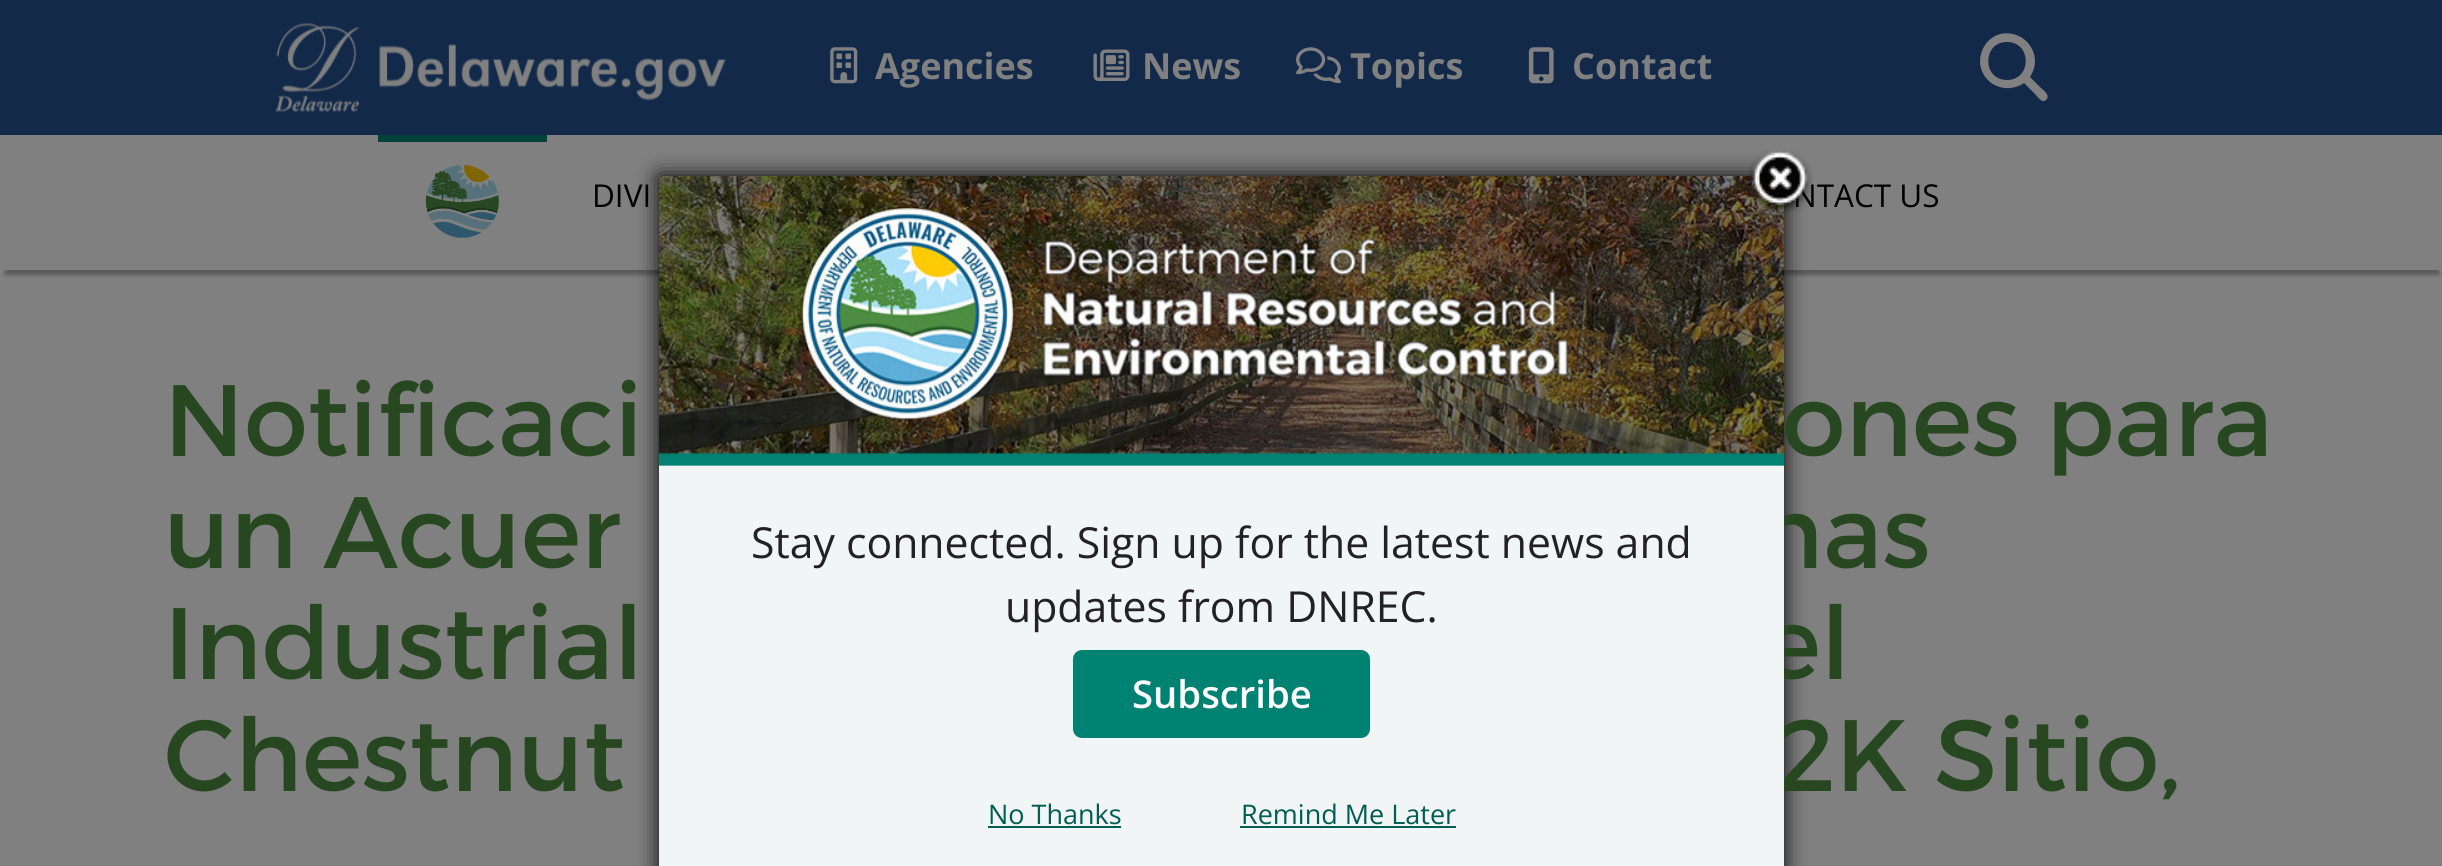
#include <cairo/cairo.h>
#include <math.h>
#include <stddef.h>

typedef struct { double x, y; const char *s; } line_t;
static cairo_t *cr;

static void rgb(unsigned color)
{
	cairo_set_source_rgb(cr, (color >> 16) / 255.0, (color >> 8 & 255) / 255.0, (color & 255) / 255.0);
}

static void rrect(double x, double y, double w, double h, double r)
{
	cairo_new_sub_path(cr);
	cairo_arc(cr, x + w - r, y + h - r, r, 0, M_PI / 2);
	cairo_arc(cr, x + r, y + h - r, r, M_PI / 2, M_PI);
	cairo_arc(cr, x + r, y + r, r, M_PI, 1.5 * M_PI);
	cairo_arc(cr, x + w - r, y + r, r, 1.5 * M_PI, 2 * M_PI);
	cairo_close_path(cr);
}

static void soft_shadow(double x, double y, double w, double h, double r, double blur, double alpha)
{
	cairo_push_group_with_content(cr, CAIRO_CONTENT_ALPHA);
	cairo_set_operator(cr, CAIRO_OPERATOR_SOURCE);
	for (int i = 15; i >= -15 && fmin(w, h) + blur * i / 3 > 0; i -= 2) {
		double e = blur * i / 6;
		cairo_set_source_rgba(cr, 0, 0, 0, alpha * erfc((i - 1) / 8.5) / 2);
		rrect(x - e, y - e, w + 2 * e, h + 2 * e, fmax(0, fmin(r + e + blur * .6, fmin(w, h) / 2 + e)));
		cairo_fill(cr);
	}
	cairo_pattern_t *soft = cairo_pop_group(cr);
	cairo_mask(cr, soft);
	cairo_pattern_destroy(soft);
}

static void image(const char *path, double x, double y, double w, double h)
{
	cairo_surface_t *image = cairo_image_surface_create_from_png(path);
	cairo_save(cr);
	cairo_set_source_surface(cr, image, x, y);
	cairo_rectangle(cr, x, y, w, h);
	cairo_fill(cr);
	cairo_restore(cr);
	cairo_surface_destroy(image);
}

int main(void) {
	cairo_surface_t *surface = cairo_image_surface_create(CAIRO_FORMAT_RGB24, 2442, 866);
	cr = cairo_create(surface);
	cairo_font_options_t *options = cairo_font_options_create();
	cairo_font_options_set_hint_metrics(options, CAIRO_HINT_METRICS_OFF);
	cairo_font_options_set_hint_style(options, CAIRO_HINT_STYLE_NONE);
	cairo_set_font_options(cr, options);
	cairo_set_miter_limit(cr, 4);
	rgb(0x808080);
	cairo_paint(cr);
	rgb(0x12294a);
	cairo_rectangle(cr, 0, 0, 2442, 135);
	cairo_fill(cr);
	image("img/1.png", 275, 23, 84, 89);
	image("img/2.png", 379, 44, 347, 57);
	image("img/3.png", 830, 47, 28, 37);
	image("img/4.png", 1093, 49, 37, 32);
	image("img/5.png", 1296, 47, 45, 37);
	image("img/6.png", 1528, 47, 26, 37);
	rgb(0x808080);
	cairo_new_path(cr);
	cairo_move_to(cr, 2035, 61);
	cairo_curve_to(cr, 2035, 67, 2033, 72, 2030, 77);
	cairo_line_to(cr, 2041, 88);
	cairo_curve_to(cr, 2043, 90, 2051, 95, 2046, 100);
	cairo_curve_to(cr, 2042, 104, 2037, 96, 2035, 94);
	cairo_line_to(cr, 2024, 83);
	cairo_curve_to(cr, 2014, 90, 2000, 90, 1990, 82);
	cairo_curve_to(cr, 1984, 77, 1981, 71, 1980, 63);
	cairo_curve_to(cr, 1980, 57, 1981, 51, 1985, 45);
	cairo_curve_to(cr, 2000, 23, 2034, 34, 2035, 61);
	cairo_close_path(cr);
	cairo_move_to(cr, 2007, 80);
	cairo_curve_to(cr, 2032, 80, 2032, 42, 2007, 42);
	cairo_curve_to(cr, 1982, 42, 1982, 80, 2007, 80);
	cairo_close_path(cr);
	cairo_fill(cr);
	cairo_save(cr);
	cairo_rectangle(cr, 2, 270, 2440, 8);
	cairo_clip(cr);
	rgb(0x000000);
	soft_shadow(5, 149, 2434, 126, 0, 2, 0.3);
	cairo_restore(cr);
	rgb(0x004139);
	cairo_rectangle(cr, 378, 135, 169, 7);
	cairo_fill(cr);
	image("img/7.png", 425, 164, 74, 74);
	rgb(0x000000);
	soft_shadow(659, 176, 1125, 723, 0, 11, 1);
	cairo_select_font_face(cr, "Open Sans", CAIRO_FONT_SLANT_NORMAL, CAIRO_FONT_WEIGHT_BOLD);
	cairo_set_font_size(cr, 36);
	rgb(0x808080);
	{
		static const line_t items[] = {
			{875, 79, "Agencies"},
			{1142, 79, "News"},
			{1350, 79, "Topics"},
			{1572, 79, "Contact"},
		};
		for (size_t i = 0; i < sizeof items / sizeof *items; i++) {
			cairo_move_to(cr, items[i].x, items[i].y);
			cairo_show_text(cr, items[i].s);
		}
	}
	cairo_select_font_face(cr, "Open Sans", CAIRO_FONT_SLANT_NORMAL, CAIRO_FONT_WEIGHT_NORMAL);
	cairo_set_font_size(cr, 31.5);
	rgb(0x000000);
	cairo_move_to(cr, 592, 207);
	cairo_show_text(cr, "DIVI");
	cairo_move_to(cr, 1793, 207);
	cairo_show_text(cr, "NTACT US");
	cairo_select_font_face(cr, "Montserrat", CAIRO_FONT_SLANT_NORMAL, CAIRO_FONT_WEIGHT_NORMAL);
	cairo_set_font_size(cr, 101.25);
	rgb(0x274721);
	{
		static const line_t items[] = {
			{164, 456, "Notificaci"},
			{1782, 456, "ones para"},
			{164, 568, "un Acuer"},
			{1756, 568, "nas"},
			{164, 679, "Industrial"},
			{1761, 679, "el"},
			{164, 791, "Chestnut"},
			{1776, 791, "2K Sitio,"},
		};
		for (size_t i = 0; i < sizeof items / sizeof *items; i++) {
			cairo_move_to(cr, items[i].x, items[i].y);
			cairo_show_text(cr, items[i].s);
		}
	}
	rgb(0xf2f5f6);
	cairo_rectangle(cr, 659, 465, 1125, 401);
	cairo_fill(cr);
	image("img/9.png", 659, 176, 1125, 290);
	image("img/8.png", 1748, 150, 65, 63);
	cairo_select_font_face(cr, "Open Sans", CAIRO_FONT_SLANT_NORMAL, CAIRO_FONT_WEIGHT_NORMAL);
	cairo_set_font_size(cr, 42.75);
	rgb(0x222222);
	cairo_move_to(cr, 751, 558);
	cairo_show_text(cr, "Stay connected. Sign up for the latest news and");
	cairo_move_to(cr, 1005, 622);
	cairo_show_text(cr, "updates from DNREC.");
	rgb(0x008272);
	rrect(1074, 651, 295, 86, 8);
	cairo_fill_preserve(cr);
	cairo_stroke(cr);
	cairo_select_font_face(cr, "Open Sans SemiBold", CAIRO_FONT_SLANT_NORMAL, CAIRO_FONT_WEIGHT_NORMAL);
	cairo_set_font_size(cr, 38.25);
	rgb(0xffffff);
	cairo_move_to(cr, 1132, 708);
	cairo_show_text(cr, "Subscribe");
	cairo_select_font_face(cr, "Open Sans", CAIRO_FONT_SLANT_NORMAL, CAIRO_FONT_WEIGHT_NORMAL);
	cairo_set_font_size(cr, 27);
	rgb(0x005d51);
	cairo_move_to(cr, 988, 824);
	cairo_show_text(cr, "No Thanks");
	cairo_rectangle(cr, 988, 826, 133, 2);
	cairo_fill(cr);
	cairo_move_to(cr, 1241, 824);
	cairo_show_text(cr, "Remind Me Later");
	cairo_rectangle(cr, 1240, 826, 216, 2);
	cairo_fill(cr);
	cairo_surface_write_to_png(surface, "page.png");
	cairo_font_options_destroy(options);
	cairo_destroy(cr);
	cairo_surface_destroy(surface);
	return 0;
}
